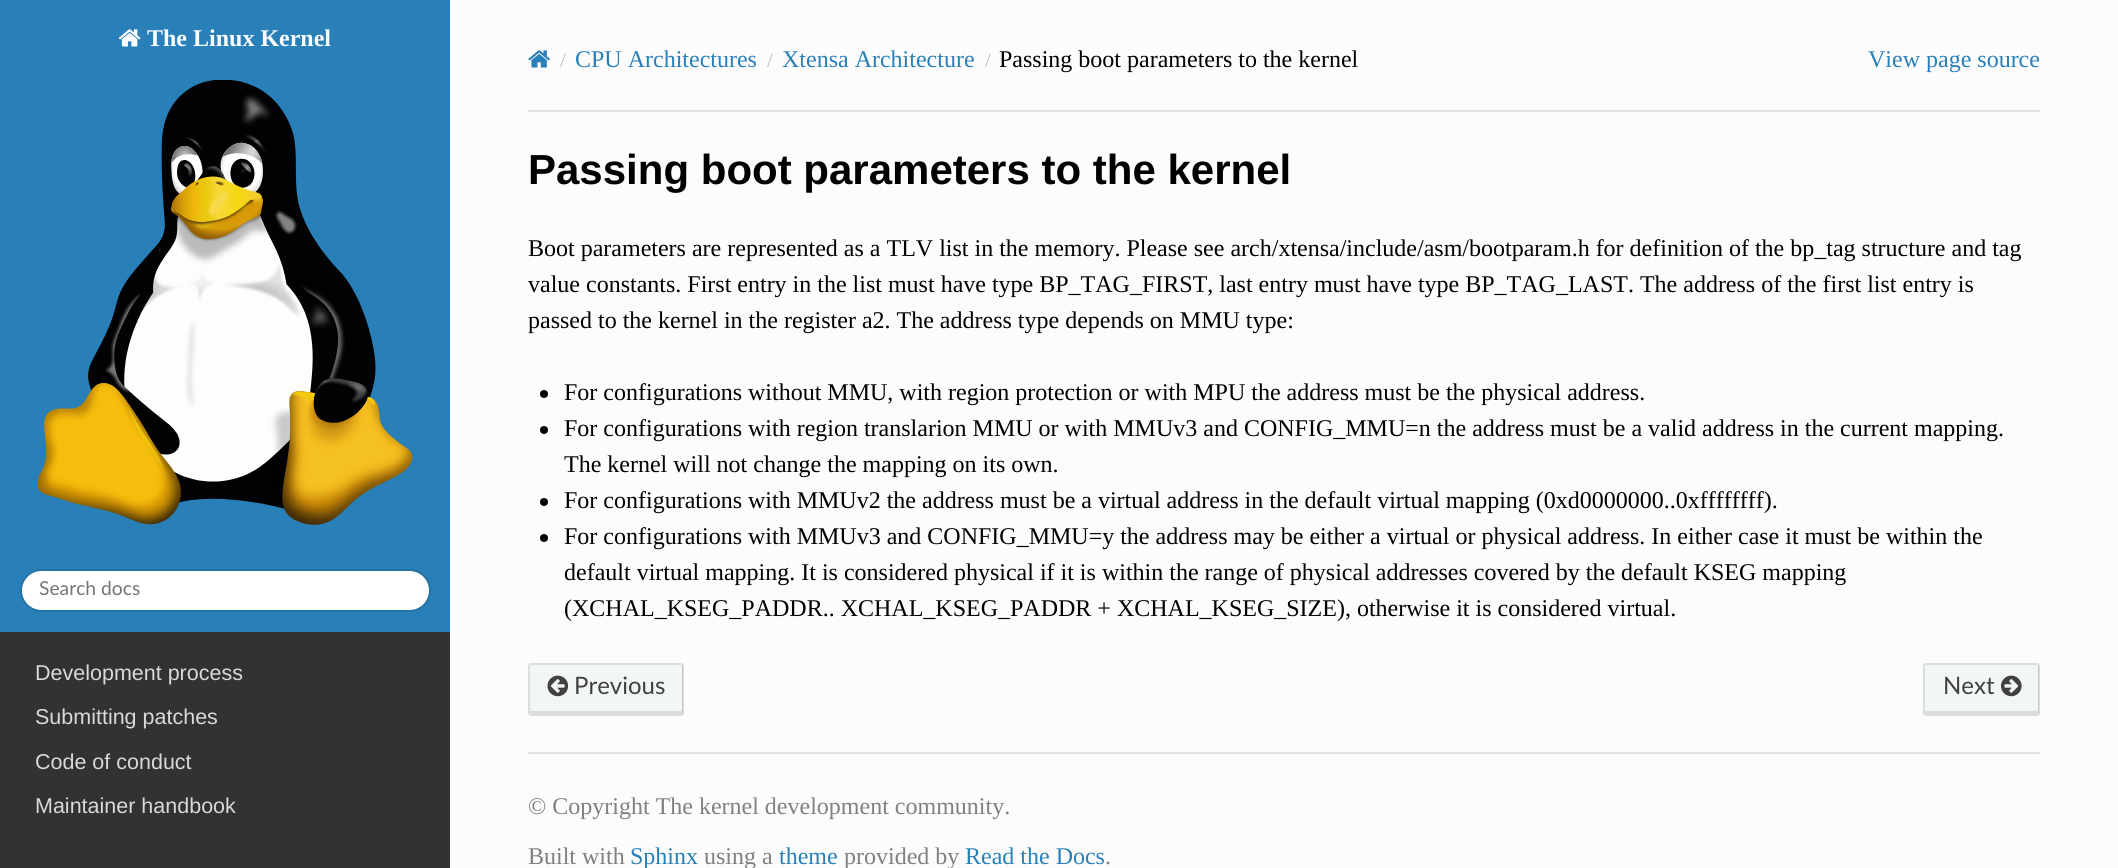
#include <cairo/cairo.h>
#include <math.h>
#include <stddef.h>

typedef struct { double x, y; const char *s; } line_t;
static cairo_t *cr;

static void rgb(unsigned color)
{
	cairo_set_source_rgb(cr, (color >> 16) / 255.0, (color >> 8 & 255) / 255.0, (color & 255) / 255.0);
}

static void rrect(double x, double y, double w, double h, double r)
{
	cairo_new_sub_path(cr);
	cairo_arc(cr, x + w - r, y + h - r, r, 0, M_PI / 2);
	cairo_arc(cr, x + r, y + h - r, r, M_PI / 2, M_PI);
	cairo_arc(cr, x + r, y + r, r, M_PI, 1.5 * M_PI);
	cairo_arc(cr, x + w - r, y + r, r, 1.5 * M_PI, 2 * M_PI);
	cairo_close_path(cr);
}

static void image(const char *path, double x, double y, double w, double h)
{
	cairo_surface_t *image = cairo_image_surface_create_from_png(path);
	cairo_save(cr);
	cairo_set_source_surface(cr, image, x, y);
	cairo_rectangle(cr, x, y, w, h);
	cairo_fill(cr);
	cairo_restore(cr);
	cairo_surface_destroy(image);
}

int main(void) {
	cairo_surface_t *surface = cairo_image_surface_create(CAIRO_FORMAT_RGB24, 2118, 868);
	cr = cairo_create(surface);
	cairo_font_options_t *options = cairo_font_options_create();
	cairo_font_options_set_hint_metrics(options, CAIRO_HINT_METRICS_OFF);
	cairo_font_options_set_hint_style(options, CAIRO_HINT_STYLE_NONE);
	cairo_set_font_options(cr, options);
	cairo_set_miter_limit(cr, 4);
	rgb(0xfcfcfc);
	cairo_paint(cr);
	rgb(0x343131);
	cairo_rectangle(cr, 0, 632, 450, 236);
	cairo_fill(cr);
	rgb(0x2980b9);
	cairo_rectangle(cr, 0, 0, 450, 632);
	cairo_fill(cr);
	image("img/1.png", 118, 29, 23, 18);
	image("img/2.png", 38, 80, 375, 445);
	rgb(0xffffff);
	rrect(21, 570, 409, 41, 20.5);
	cairo_fill_preserve(cr);
	rgb(0x2472a4);
	cairo_stroke(cr);
	image("img/3.png", 528, 50, 22, 18);
	rgb(0xe1e4e5);
	cairo_rectangle(cr, 528, 110, 1512, 2);
	cairo_fill(cr);
	rgb(0x000000);
	cairo_arc(cr, 544, 394, 4, 0, 2 * M_PI);
	cairo_fill(cr);
	cairo_arc(cr, 544, 430, 4, 0, 2 * M_PI);
	cairo_fill(cr);
	cairo_arc(cr, 544, 502, 4, 0, 2 * M_PI);
	cairo_fill(cr);
	cairo_arc(cr, 544, 538, 4, 0, 2 * M_PI);
	cairo_fill(cr);
	rgb(0xf3f6f6);
	rrect(528, 663, 156, 53, 3);
	cairo_fill(cr);
	rgb(0xdbdddd);
	cairo_new_path(cr);
	cairo_move_to(cr, 530, 710);
	cairo_line_to(cr, 530, 712);
	cairo_curve_to(cr, 530, 713, 531, 714, 532, 714);
	cairo_line_to(cr, 682, 714);
	cairo_curve_to(cr, 682, 714, 683, 713, 683, 712);
	cairo_line_to(cr, 683, 666);
	cairo_curve_to(cr, 683, 666, 683, 665, 682, 665);
	cairo_line_to(cr, 682, 710);
	cairo_curve_to(cr, 682, 710, 682, 711, 681, 711);
	cairo_line_to(cr, 531, 711);
	cairo_curve_to(cr, 530, 711, 530, 710, 530, 710);
	cairo_close_path(cr);
	cairo_fill(cr);
	rrect(529, 664, 154, 51, 2);
	cairo_set_source_rgba(cr, 0, 0, 0, 0.1);
	cairo_stroke(cr);
	image("img/4.png", 547, 675, 22, 22);
	rgb(0xf3f6f6);
	rrect(1923, 663, 117, 53, 3);
	cairo_fill(cr);
	rgb(0xdbdddd);
	cairo_new_path(cr);
	cairo_move_to(cr, 1925, 711);
	cairo_line_to(cr, 1925, 712);
	cairo_curve_to(cr, 1925, 713, 1926, 714, 1926, 714);
	cairo_line_to(cr, 2038, 714);
	cairo_curve_to(cr, 2038, 714, 2039, 713, 2039, 712);
	cairo_line_to(cr, 2039, 666);
	cairo_curve_to(cr, 2039, 666, 2039, 665, 2038, 665);
	cairo_line_to(cr, 2038, 703);
	cairo_curve_to(cr, 2038, 704, 2039, 711, 2037, 711);
	cairo_close_path(cr);
	cairo_fill(cr);
	rrect(1924, 664, 115, 51, 2);
	cairo_set_source_rgba(cr, 0, 0, 0, 0.1);
	cairo_stroke(cr);
	image("img/5.png", 2001, 675, 21, 22);
	rgb(0xe1e4e5);
	cairo_rectangle(cr, 528, 752, 1512, 2);
	cairo_fill(cr);
	cairo_select_font_face(cr, "Liberation Serif", CAIRO_FONT_SLANT_NORMAL, CAIRO_FONT_WEIGHT_BOLD);
	cairo_set_font_size(cr, 24);
	rgb(0xfcfcfc);
	cairo_move_to(cr, 147, 46);
	cairo_show_text(cr, "The Linux Kernel");
	cairo_select_font_face(cr, "Lato", CAIRO_FONT_SLANT_NORMAL, CAIRO_FONT_WEIGHT_NORMAL);
	cairo_set_font_size(cr, 19.25);
	rgb(0x757575);
	cairo_move_to(cr, 39, 595);
	cairo_show_text(cr, "Search docs");
	cairo_select_font_face(cr, "Liberation Sans", CAIRO_FONT_SLANT_NORMAL, CAIRO_FONT_WEIGHT_NORMAL);
	cairo_set_font_size(cr, 21.5);
	rgb(0xd9d9d9);
	{
		static const line_t items[] = {
			{35, 680, "Development process"},
			{35, 724, "Submitting patches"},
			{35, 769, "Code of conduct"},
			{35, 813, "Maintainer handbook"},
		};
		for (size_t i = 0; i < sizeof items / sizeof *items; i++) {
			cairo_move_to(cr, items[i].x, items[i].y);
			cairo_show_text(cr, items[i].s);
		}
	}
	cairo_select_font_face(cr, "Liberation Serif", CAIRO_FONT_SLANT_NORMAL, CAIRO_FONT_WEIGHT_NORMAL);
	cairo_set_font_size(cr, 20);
	rgb(0xbbbbbb);
	cairo_move_to(cr, 560, 67);
	cairo_show_text(cr, "/");
	cairo_set_font_size(cr, 24);
	rgb(0x2980b9);
	cairo_move_to(cr, 575, 67);
	cairo_show_text(cr, "CPU Architectures");
	cairo_set_font_size(cr, 20);
	rgb(0xbbbbbb);
	cairo_move_to(cr, 767, 67);
	cairo_show_text(cr, "/");
	cairo_set_font_size(cr, 24);
	rgb(0x2980b9);
	cairo_move_to(cr, 782, 67);
	cairo_show_text(cr, "Xtensa Architecture");
	cairo_set_font_size(cr, 20);
	rgb(0xbbbbbb);
	cairo_move_to(cr, 985, 67);
	cairo_show_text(cr, "/");
	cairo_set_font_size(cr, 24);
	rgb(0x000000);
	cairo_move_to(cr, 999, 67);
	cairo_show_text(cr, "Passing boot parameters to the kernel");
	rgb(0x2980b9);
	cairo_move_to(cr, 1868, 67);
	cairo_show_text(cr, "View page source");
	cairo_select_font_face(cr, "Liberation Sans", CAIRO_FONT_SLANT_NORMAL, CAIRO_FONT_WEIGHT_BOLD);
	cairo_set_font_size(cr, 42);
	rgb(0x000000);
	cairo_move_to(cr, 528, 184);
	cairo_show_text(cr, "Passing boot parameters to the kernel");
	cairo_select_font_face(cr, "Liberation Serif", CAIRO_FONT_SLANT_NORMAL, CAIRO_FONT_WEIGHT_NORMAL);
	cairo_set_font_size(cr, 24);
	{
		static const line_t items[] = {
			{528, 256, "Boot parameters are represented as a TLV list in the memory. Please see arch/xtensa/include/asm/bootparam.h for definition of the bp_tag structure and tag"},
			{528, 292, "value constants. First entry in the list must have type BP_TAG_FIRST, last entry must have type BP_TAG_LAST. The address of the first list entry is"},
			{528, 328, "passed to the kernel in the register a2. The address type depends on MMU type:"},
			{564, 400, "For configurations without MMU, with region protection or with MPU the address must be the physical address."},
			{564, 436, "For configurations with region translarion MMU or with MMUv3 and CONFIG_MMU=n the address must be a valid address in the current mapping."},
			{564, 472, "The kernel will not change the mapping on its own."},
			{564, 508, "For configurations with MMUv2 the address must be a virtual address in the default virtual mapping (0xd0000000..0xffffffff)."},
			{564, 544, "For configurations with MMUv3 and CONFIG_MMU=y the address may be either a virtual or physical address. In either case it must be within the"},
			{564, 580, "default virtual mapping. It is considered physical if it is within the range of physical addresses covered by the default KSEG mapping"},
			{564, 616, "(XCHAL_KSEG_PADDR.. XCHAL_KSEG_PADDR + XCHAL_KSEG_SIZE), otherwise it is considered virtual."},
		};
		for (size_t i = 0; i < sizeof items / sizeof *items; i++) {
			cairo_move_to(cr, items[i].x, items[i].y);
			cairo_show_text(cr, items[i].s);
		}
	}
	cairo_select_font_face(cr, "Lato", CAIRO_FONT_SLANT_NORMAL, CAIRO_FONT_WEIGHT_NORMAL);
	rgb(0x404040);
	cairo_move_to(cr, 574, 694);
	cairo_show_text(cr, "Previous");
	cairo_move_to(cr, 1943, 694);
	cairo_show_text(cr, "Next");
	cairo_select_font_face(cr, "Liberation Serif", CAIRO_FONT_SLANT_NORMAL, CAIRO_FONT_WEIGHT_NORMAL);
	rgb(0x808080);
	cairo_move_to(cr, 528, 814);
	cairo_show_text(cr, "© Copyright The kernel development community.");
	cairo_move_to(cr, 528, 864);
	cairo_show_text(cr, "Built with");
	rgb(0x2980b9);
	cairo_move_to(cr, 630, 864);
	cairo_show_text(cr, "Sphinx");
	rgb(0x808080);
	cairo_move_to(cr, 704, 864);
	cairo_show_text(cr, "using a");
	rgb(0x2980b9);
	cairo_move_to(cr, 779, 864);
	cairo_show_text(cr, "theme");
	rgb(0x808080);
	cairo_move_to(cr, 844, 864);
	cairo_show_text(cr, "provided by");
	rgb(0x2980b9);
	cairo_move_to(cr, 965, 864);
	cairo_show_text(cr, "Read the Docs");
	rgb(0x808080);
	cairo_move_to(cr, 1105, 864);
	cairo_show_text(cr, ".");
	cairo_surface_write_to_png(surface, "page.png");
	cairo_font_options_destroy(options);
	cairo_destroy(cr);
	cairo_surface_destroy(surface);
	return 0;
}
